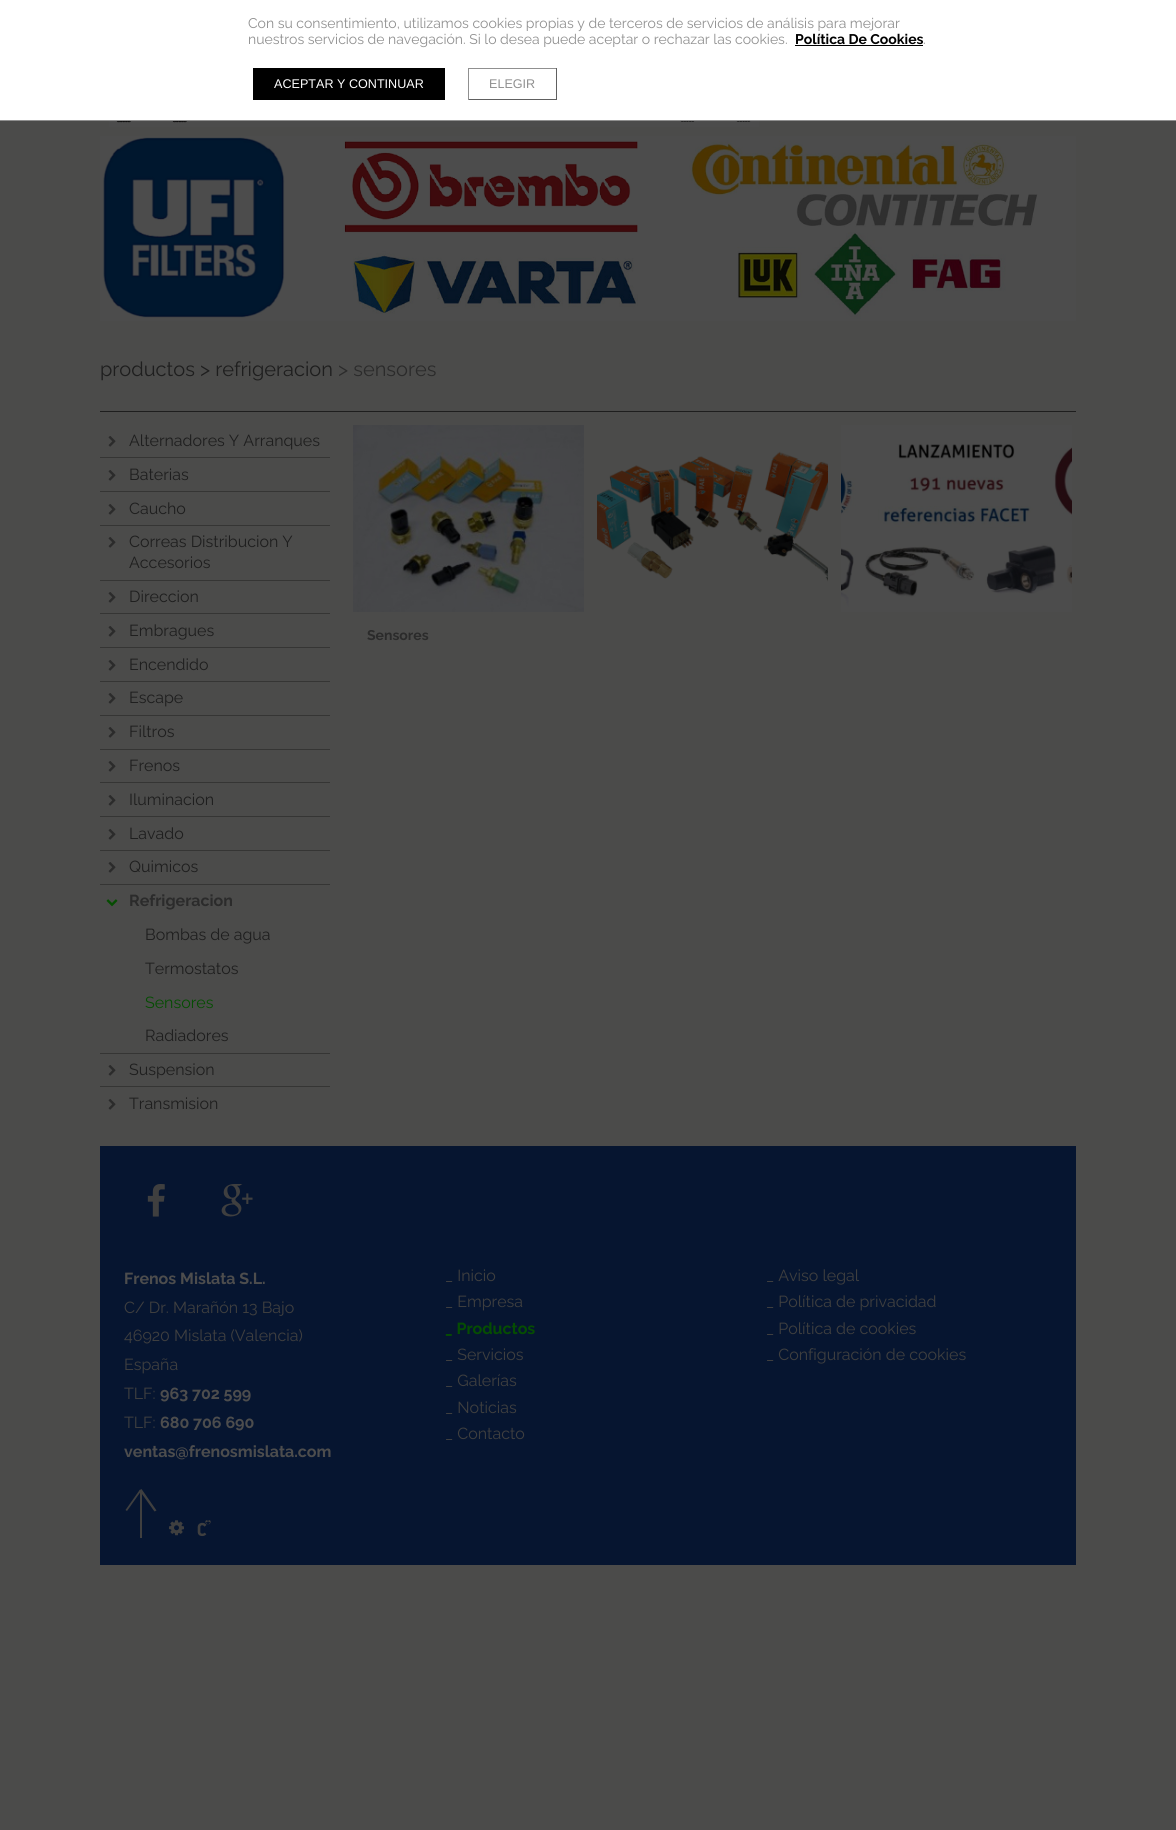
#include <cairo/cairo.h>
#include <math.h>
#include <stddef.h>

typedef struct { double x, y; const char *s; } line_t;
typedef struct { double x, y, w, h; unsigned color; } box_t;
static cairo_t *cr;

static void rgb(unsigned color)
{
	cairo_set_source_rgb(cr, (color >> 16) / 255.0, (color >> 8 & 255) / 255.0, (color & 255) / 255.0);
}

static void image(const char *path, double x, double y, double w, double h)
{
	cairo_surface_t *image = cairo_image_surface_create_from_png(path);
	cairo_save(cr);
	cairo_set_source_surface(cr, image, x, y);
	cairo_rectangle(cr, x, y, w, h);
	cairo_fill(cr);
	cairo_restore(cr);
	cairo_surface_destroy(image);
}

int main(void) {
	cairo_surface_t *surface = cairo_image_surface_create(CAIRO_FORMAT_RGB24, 1176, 1830);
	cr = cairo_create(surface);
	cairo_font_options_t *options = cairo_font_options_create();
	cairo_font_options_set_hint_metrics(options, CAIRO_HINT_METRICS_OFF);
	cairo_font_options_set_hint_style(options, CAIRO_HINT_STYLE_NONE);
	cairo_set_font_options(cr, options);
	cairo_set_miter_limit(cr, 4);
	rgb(0x4b4b4a);
	cairo_paint(cr);
	{
		static const box_t items[] = {
			{0, 0, 1176, 120, 0xffffff},
			{0, 120, 1176, 1, 0x909090},
			{795, 45, 128, 1, 0x000000},
			{253, 68, 192, 32, 0x000000},
			{468, 68, 89, 1, 0x909090},
			{556, 68, 1, 32, 0x606060},
			{468, 99, 89, 1, 0x606060},
			{468, 68, 1, 32, 0x909090},
		};
		for (size_t i = 0; i < sizeof items / sizeof *items; i++) {
			rgb(items[i].color);
			cairo_rectangle(cr, items[i].x, items[i].y, items[i].w, items[i].h);
			cairo_fill(cr);
		}
	}
	image("img/1.png", 109, 121, 650, 6);
	image("img/2.png", 100, 136, 976, 185);
	rgb(0x1e1e1e);
	cairo_rectangle(cr, 100, 411, 976, 1);
	cairo_fill(cr);
	image("img/3.png", 108, 436, 8, 11);
	rgb(0x353534);
	cairo_rectangle(cr, 100, 457, 230, 1);
	cairo_fill(cr);
	image("img/3.png", 108, 470, 8, 11);
	cairo_rectangle(cr, 100, 491, 230, 1);
	cairo_fill(cr);
	image("img/3.png", 108, 504, 8, 11);
	cairo_rectangle(cr, 100, 525, 230, 1);
	cairo_fill(cr);
	image("img/3.png", 108, 537, 8, 11);
	cairo_rectangle(cr, 100, 580, 230, 1);
	cairo_fill(cr);
	image("img/3.png", 108, 592, 8, 11);
	cairo_rectangle(cr, 100, 613, 230, 1);
	cairo_fill(cr);
	image("img/3.png", 108, 626, 8, 11);
	cairo_rectangle(cr, 100, 647, 230, 1);
	cairo_fill(cr);
	image("img/3.png", 108, 660, 8, 11);
	cairo_rectangle(cr, 100, 681, 230, 1);
	cairo_fill(cr);
	image("img/3.png", 108, 693, 8, 11);
	cairo_rectangle(cr, 100, 715, 230, 1);
	cairo_fill(cr);
	image("img/3.png", 108, 727, 8, 11);
	cairo_rectangle(cr, 100, 749, 230, 1);
	cairo_fill(cr);
	image("img/3.png", 108, 761, 8, 11);
	cairo_rectangle(cr, 100, 782, 230, 1);
	cairo_fill(cr);
	image("img/3.png", 108, 795, 8, 11);
	cairo_rectangle(cr, 100, 816, 230, 1);
	cairo_fill(cr);
	image("img/3.png", 108, 829, 8, 11);
	cairo_rectangle(cr, 100, 850, 230, 1);
	cairo_fill(cr);
	image("img/3.png", 108, 862, 8, 11);
	cairo_rectangle(cr, 100, 884, 230, 1);
	cairo_fill(cr);
	image("img/4.png", 106, 899, 12, 8);
	cairo_rectangle(cr, 100, 1053, 230, 1);
	cairo_fill(cr);
	image("img/3.png", 108, 1065, 8, 11);
	cairo_rectangle(cr, 100, 1086, 230, 1);
	cairo_fill(cr);
	image("img/3.png", 108, 1099, 8, 11);
	image("img/5.png", 597, 451, 231, 131);
	image("img/6.png", 841, 425, 231, 187);
	image("img/7.png", 353, 425, 231, 187);
	rgb(0x061530);
	cairo_rectangle(cr, 100, 1146, 976, 419);
	cairo_fill(cr);
	image("img/8.png", 147, 1184, 18, 33);
	image("img/9.png", 221, 1184, 32, 33);
	rgb(0x3f3f3f);
	cairo_rectangle(cr, 140, 1490, 2, 48);
	cairo_fill(cr);
	cairo_new_path(cr);
	cairo_move_to(cr, 125.5, 1510);
	cairo_line_to(cr, 140, 1489.5);
	cairo_line_to(cr, 141.5, 1490.5);
	cairo_line_to(cr, 127, 1511);
	cairo_close_path(cr);
	cairo_fill(cr);
	cairo_new_path(cr);
	cairo_move_to(cr, 141.5, 1489);
	cairo_line_to(cr, 156.5, 1510.5);
	cairo_line_to(cr, 154.5, 1511.5);
	cairo_line_to(cr, 139.5, 1490.5);
	cairo_close_path(cr);
	cairo_fill(cr);
	image("img/10.png", 169, 1520, 15, 16);
	image("img/11.png", 197, 1520, 14, 17);
	cairo_select_font_face(cr, "Raleway", CAIRO_FONT_SLANT_NORMAL, CAIRO_FONT_WEIGHT_NORMAL);
	cairo_set_font_size(cr, 14);
	rgb(0x909090);
	cairo_move_to(cr, 248, 28);
	cairo_show_text(cr, "Con su consentimiento, utilizamos cookies propias y de terceros de servicios de análisis para mejorar");
	cairo_move_to(cr, 248, 44);
	cairo_show_text(cr, "nuestros servicios de navegación. Si lo desea puede aceptar o rechazar las cookies.");
	cairo_select_font_face(cr, "Raleway", CAIRO_FONT_SLANT_NORMAL, CAIRO_FONT_WEIGHT_BOLD);
	rgb(0x000000);
	cairo_move_to(cr, 795, 44);
	cairo_show_text(cr, "Política De Cookies");
	cairo_select_font_face(cr, "Raleway", CAIRO_FONT_SLANT_NORMAL, CAIRO_FONT_WEIGHT_NORMAL);
	rgb(0x909090);
	cairo_move_to(cr, 923, 44);
	cairo_show_text(cr, ".");
	cairo_select_font_face(cr, "Liberation Sans", CAIRO_FONT_SLANT_NORMAL, CAIRO_FONT_WEIGHT_NORMAL);
	cairo_set_font_size(cr, 12.6);
	rgb(0xffffff);
	cairo_move_to(cr, 274, 88);
	cairo_show_text(cr, "ACEPTAR Y CONTINUAR");
	rgb(0x909090);
	cairo_move_to(cr, 489, 88);
	cairo_show_text(cr, "ELEGIR");
	cairo_select_font_face(cr, "Raleway", CAIRO_FONT_SLANT_NORMAL, CAIRO_FONT_WEIGHT_NORMAL);
	cairo_set_font_size(cr, 20);
	rgb(0x1e1e1e);
	cairo_move_to(cr, 100, 376);
	cairo_show_text(cr, "productos > refrigeracion");
	rgb(0x2b2b2b);
	cairo_move_to(cr, 338, 376);
	cairo_show_text(cr, "> sensores");
	cairo_set_font_size(cr, 16);
	rgb(0x1e1e1e);
	{
		static const line_t items[] = {
			{129, 446, "Alternadores Y Arranques"},
			{129, 480, "Baterias"},
			{129, 514, "Caucho"},
			{129, 547, "Correas Distribucion Y"},
			{129, 568, "Accesorios"},
			{129, 602, "Direccion"},
			{129, 636, "Embragues"},
			{129, 670, "Encendido"},
			{129, 703, "Escape"},
			{129, 737, "Filtros"},
			{129, 771, "Frenos"},
			{129, 805, "Iluminacion"},
			{129, 839, "Lavado"},
			{129, 872, "Quimicos"},
		};
		for (size_t i = 0; i < sizeof items / sizeof *items; i++) {
			cairo_move_to(cr, items[i].x, items[i].y);
			cairo_show_text(cr, items[i].s);
		}
	}
	cairo_select_font_face(cr, "Raleway", CAIRO_FONT_SLANT_NORMAL, CAIRO_FONT_WEIGHT_BOLD);
	rgb(0x2b2b2b);
	cairo_move_to(cr, 129, 906);
	cairo_show_text(cr, "Refrigeracion");
	cairo_select_font_face(cr, "Raleway", CAIRO_FONT_SLANT_NORMAL, CAIRO_FONT_WEIGHT_NORMAL);
	rgb(0x1e1e1e);
	cairo_move_to(cr, 145, 940);
	cairo_show_text(cr, "Bombas de agua");
	cairo_move_to(cr, 145, 974);
	cairo_show_text(cr, "Termostatos");
	rgb(0x054d02);
	cairo_move_to(cr, 145, 1008);
	cairo_show_text(cr, "Sensores");
	rgb(0x1e1e1e);
	{
		static const line_t items[] = {
			{145, 1041, "Radiadores"},
			{129, 1075, "Suspension"},
			{129, 1109, "Transmision"},
		};
		for (size_t i = 0; i < sizeof items / sizeof *items; i++) {
			cairo_move_to(cr, items[i].x, items[i].y);
			cairo_show_text(cr, items[i].s);
		}
	}
	cairo_select_font_face(cr, "Raleway", CAIRO_FONT_SLANT_NORMAL, CAIRO_FONT_WEIGHT_BOLD);
	cairo_set_font_size(cr, 14);
	rgb(0x2b2b2b);
	cairo_move_to(cr, 367, 640);
	cairo_show_text(cr, "Sensores");
	cairo_set_font_size(cr, 16);
	rgb(0x4d4d4d);
	cairo_move_to(cr, 124, 1284);
	cairo_show_text(cr, "Frenos Mislata S.L.");
	cairo_select_font_face(cr, "Raleway", CAIRO_FONT_SLANT_NORMAL, CAIRO_FONT_WEIGHT_NORMAL);
	rgb(0x3f3f3f);
	{
		static const line_t items[] = {
			{124, 1313, "C/ Dr. Marañón 13 Bajo"},
			{124, 1341, "46920 Mislata (Valencia)"},
			{124, 1370, "España"},
			{124, 1399, "TLF:"},
		};
		for (size_t i = 0; i < sizeof items / sizeof *items; i++) {
			cairo_move_to(cr, items[i].x, items[i].y);
			cairo_show_text(cr, items[i].s);
		}
	}
	cairo_select_font_face(cr, "Raleway", CAIRO_FONT_SLANT_NORMAL, CAIRO_FONT_WEIGHT_BOLD);
	rgb(0x4d4d4d);
	cairo_move_to(cr, 160, 1399);
	cairo_show_text(cr, "963 702 599");
	cairo_select_font_face(cr, "Raleway", CAIRO_FONT_SLANT_NORMAL, CAIRO_FONT_WEIGHT_NORMAL);
	rgb(0x3f3f3f);
	cairo_move_to(cr, 124, 1428);
	cairo_show_text(cr, "TLF:");
	cairo_select_font_face(cr, "Raleway", CAIRO_FONT_SLANT_NORMAL, CAIRO_FONT_WEIGHT_BOLD);
	rgb(0x4d4d4d);
	cairo_move_to(cr, 160, 1428);
	cairo_show_text(cr, "680 706 690");
	cairo_move_to(cr, 124, 1457);
	cairo_show_text(cr, "ventas@frenosmislata.com");
	cairo_select_font_face(cr, "Raleway", CAIRO_FONT_SLANT_NORMAL, CAIRO_FONT_WEIGHT_NORMAL);
	rgb(0x3f3f3f);
	cairo_move_to(cr, 445, 1281);
	cairo_show_text(cr, "_ Inicio");
	cairo_move_to(cr, 445, 1307);
	cairo_show_text(cr, "_ Empresa");
	cairo_select_font_face(cr, "Raleway", CAIRO_FONT_SLANT_NORMAL, CAIRO_FONT_WEIGHT_BOLD);
	rgb(0x054d02);
	cairo_move_to(cr, 445, 1334);
	cairo_show_text(cr, "_ Productos");
	cairo_select_font_face(cr, "Raleway", CAIRO_FONT_SLANT_NORMAL, CAIRO_FONT_WEIGHT_NORMAL);
	rgb(0x3f3f3f);
	{
		static const line_t items[] = {
			{445, 1360, "_ Servicios"},
			{445, 1386, "_ Galerías"},
			{445, 1413, "_ Noticias"},
			{445, 1439, "_ Contacto"},
			{766, 1281, "_ Aviso legal"},
			{766, 1307, "_ Política de privacidad"},
			{766, 1334, "_ Política de cookies"},
			{766, 1360, "_ Configuración de cookies"},
		};
		for (size_t i = 0; i < sizeof items / sizeof *items; i++) {
			cairo_move_to(cr, items[i].x, items[i].y);
			cairo_show_text(cr, items[i].s);
		}
	}
	cairo_surface_write_to_png(surface, "page.png");
	cairo_font_options_destroy(options);
	cairo_destroy(cr);
	cairo_surface_destroy(surface);
	return 0;
}
